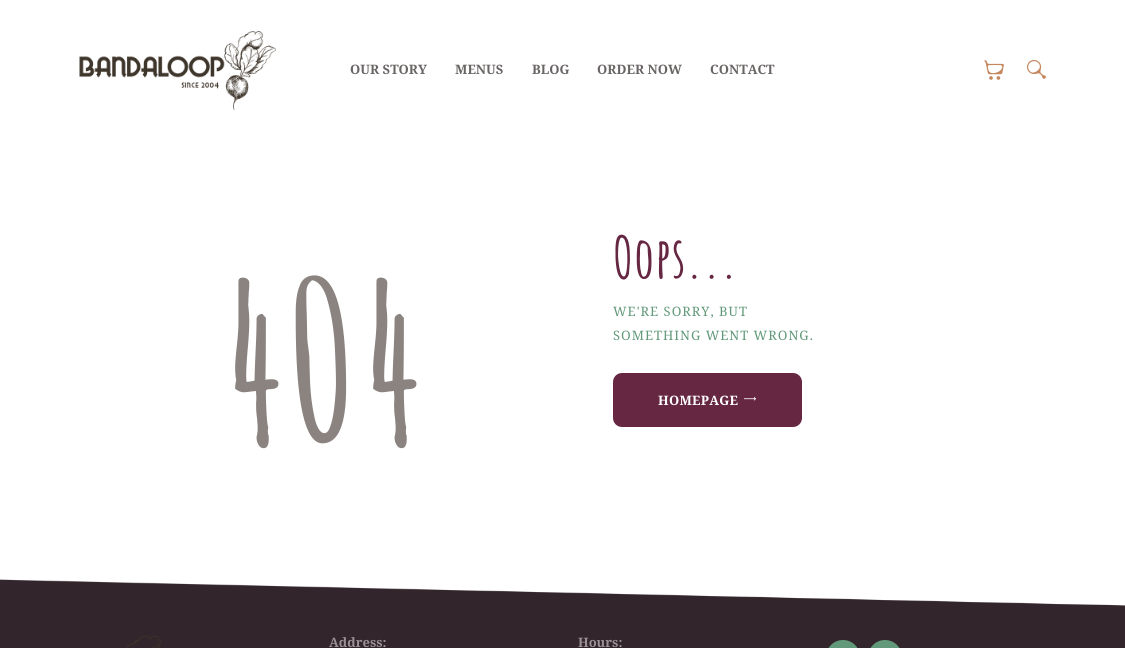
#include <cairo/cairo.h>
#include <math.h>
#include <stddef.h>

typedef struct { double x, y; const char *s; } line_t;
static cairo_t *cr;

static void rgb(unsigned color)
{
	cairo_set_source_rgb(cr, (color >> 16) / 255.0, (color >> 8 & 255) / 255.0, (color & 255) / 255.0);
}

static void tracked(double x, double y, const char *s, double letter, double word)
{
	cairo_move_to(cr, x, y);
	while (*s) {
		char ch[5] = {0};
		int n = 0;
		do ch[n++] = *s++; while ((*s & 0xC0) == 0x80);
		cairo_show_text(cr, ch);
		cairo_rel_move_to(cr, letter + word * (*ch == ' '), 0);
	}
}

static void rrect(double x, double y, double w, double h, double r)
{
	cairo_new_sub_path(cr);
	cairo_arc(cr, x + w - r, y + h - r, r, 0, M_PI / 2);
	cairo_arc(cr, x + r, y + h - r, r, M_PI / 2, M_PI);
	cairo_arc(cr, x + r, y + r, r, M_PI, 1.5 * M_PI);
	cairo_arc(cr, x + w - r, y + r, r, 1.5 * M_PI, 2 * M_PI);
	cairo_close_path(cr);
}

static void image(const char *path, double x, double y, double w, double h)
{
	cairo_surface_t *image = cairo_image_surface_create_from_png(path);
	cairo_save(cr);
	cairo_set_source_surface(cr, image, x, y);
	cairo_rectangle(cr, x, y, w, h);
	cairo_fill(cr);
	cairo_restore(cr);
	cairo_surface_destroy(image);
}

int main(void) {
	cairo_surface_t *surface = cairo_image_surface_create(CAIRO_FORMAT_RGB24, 1125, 648);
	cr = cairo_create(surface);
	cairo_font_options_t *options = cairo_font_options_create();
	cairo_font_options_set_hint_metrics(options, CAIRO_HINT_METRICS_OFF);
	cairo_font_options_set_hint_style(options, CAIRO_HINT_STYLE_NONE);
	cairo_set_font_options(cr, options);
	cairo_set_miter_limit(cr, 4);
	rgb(0xffffff);
	cairo_paint(cr);
	image("img/1.png", 79, 31, 197, 79);
	image("img/2.png", 984, 60, 20, 20);
	image("img/3.png", 1027, 60, 19, 19);
	rgb(0x662743);
	rrect(613, 373, 189, 54, 9);
	cairo_fill(cr);
	image("img/4.png", 744, 397, 12, 4);
	image("img/5.png", 0, 579, 1125, 69);
	image("img/6.png", 126, 635, 35, 13);
	rgb(0x62997a);
	rrect(826, 640, 34, 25, 17);
	cairo_fill(cr);
	rrect(868, 640, 34, 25, 17);
	cairo_fill(cr);
	cairo_select_font_face(cr, "Droid Serif", CAIRO_FONT_SLANT_NORMAL, CAIRO_FONT_WEIGHT_BOLD);
	cairo_set_font_size(cr, 13);
	rgb(0x6a6565);
	{
		static const line_t items[] = {
			{350, 74, "OUR STORY"},
			{455, 74, "MENUS"},
			{532, 74, "BLOG"},
			{597, 74, "ORDER NOW"},
			{710, 74, "CONTACT"},
		};
		for (size_t i = 0; i < sizeof items / sizeof *items; i++) {
			cairo_move_to(cr, items[i].x, items[i].y);
			cairo_show_text(cr, items[i].s);
		}
	}
	cairo_select_font_face(cr, "Amatic SC", CAIRO_FONT_SLANT_NORMAL, CAIRO_FONT_WEIGHT_BOLD);
	cairo_set_font_size(cr, 221);
	rgb(0x8a8380);
	cairo_move_to(cr, 219, 444);
	cairo_show_text(cr, "404");
	cairo_set_font_size(cr, 56);
	rgb(0x662743);
	tracked(613, 278, "Oops...", 1, 0);
	cairo_select_font_face(cr, "Droid Serif", CAIRO_FONT_SLANT_NORMAL, CAIRO_FONT_WEIGHT_NORMAL);
	cairo_set_font_size(cr, 13);
	rgb(0x62997a);
	tracked(613, 316, "WE'RE SORRY, BUT", 1, 0);
	tracked(613, 340, "SOMETHING WENT WRONG.", 1, 0);
	cairo_select_font_face(cr, "Droid Serif", CAIRO_FONT_SLANT_NORMAL, CAIRO_FONT_WEIGHT_BOLD);
	rgb(0xffffff);
	tracked(658, 405, "HOMEPAGE", 0.25, 0);
	rgb(0x999295);
	cairo_move_to(cr, 329, 647);
	cairo_show_text(cr, "Address:");
	cairo_move_to(cr, 578, 647);
	cairo_show_text(cr, "Hours:");
	cairo_surface_write_to_png(surface, "page.png");
	cairo_font_options_destroy(options);
	cairo_destroy(cr);
	cairo_surface_destroy(surface);
	return 0;
}
